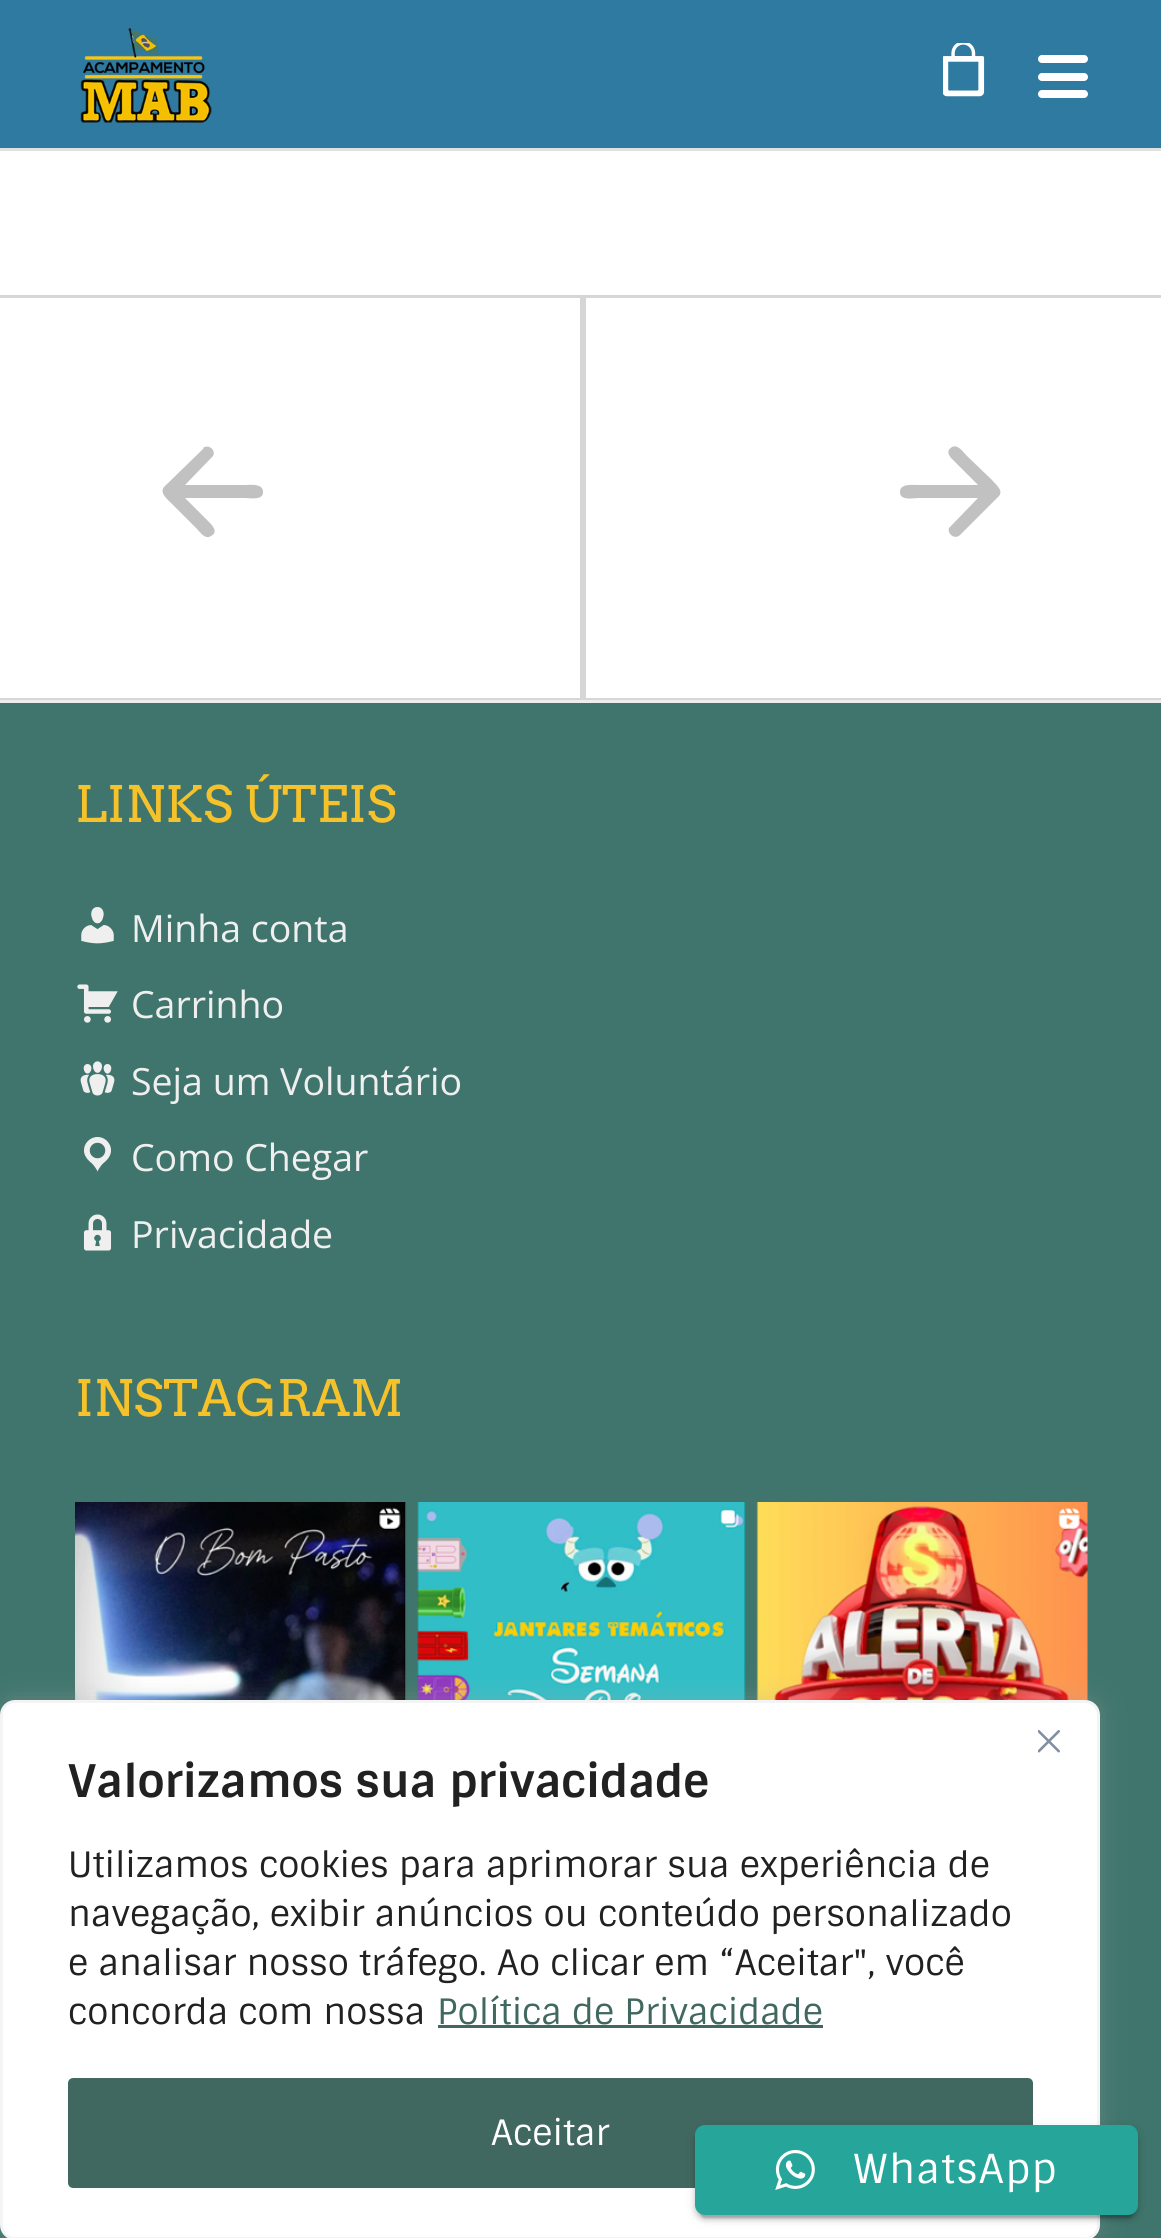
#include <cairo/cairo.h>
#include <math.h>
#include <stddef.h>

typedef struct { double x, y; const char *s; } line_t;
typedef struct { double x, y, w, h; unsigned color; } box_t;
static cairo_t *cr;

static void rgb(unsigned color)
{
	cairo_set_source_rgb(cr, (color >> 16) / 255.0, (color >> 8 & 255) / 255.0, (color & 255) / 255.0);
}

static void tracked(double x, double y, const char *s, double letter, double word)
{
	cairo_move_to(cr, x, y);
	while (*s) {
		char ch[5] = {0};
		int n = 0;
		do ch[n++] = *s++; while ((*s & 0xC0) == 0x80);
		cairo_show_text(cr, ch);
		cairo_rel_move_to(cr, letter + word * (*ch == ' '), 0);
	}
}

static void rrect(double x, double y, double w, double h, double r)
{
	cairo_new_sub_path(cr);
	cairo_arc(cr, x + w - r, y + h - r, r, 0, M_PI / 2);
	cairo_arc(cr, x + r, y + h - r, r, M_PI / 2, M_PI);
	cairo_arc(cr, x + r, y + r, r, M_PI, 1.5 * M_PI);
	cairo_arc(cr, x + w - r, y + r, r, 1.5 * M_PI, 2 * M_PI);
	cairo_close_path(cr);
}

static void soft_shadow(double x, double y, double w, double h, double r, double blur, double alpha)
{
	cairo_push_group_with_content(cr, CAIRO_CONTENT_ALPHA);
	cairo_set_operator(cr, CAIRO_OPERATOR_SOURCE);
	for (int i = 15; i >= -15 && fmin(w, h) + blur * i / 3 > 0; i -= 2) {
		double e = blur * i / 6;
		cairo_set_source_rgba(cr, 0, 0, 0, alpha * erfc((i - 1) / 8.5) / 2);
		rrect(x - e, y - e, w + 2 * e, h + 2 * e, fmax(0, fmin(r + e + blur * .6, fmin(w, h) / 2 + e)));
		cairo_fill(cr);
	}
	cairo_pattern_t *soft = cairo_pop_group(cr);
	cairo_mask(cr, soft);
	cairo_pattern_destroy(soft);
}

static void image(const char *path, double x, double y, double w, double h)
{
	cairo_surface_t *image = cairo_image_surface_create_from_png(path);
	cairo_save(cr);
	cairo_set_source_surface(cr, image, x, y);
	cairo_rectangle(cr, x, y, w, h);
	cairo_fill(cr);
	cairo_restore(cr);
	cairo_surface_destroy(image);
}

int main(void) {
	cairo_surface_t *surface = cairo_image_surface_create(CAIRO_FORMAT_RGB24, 1161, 2238);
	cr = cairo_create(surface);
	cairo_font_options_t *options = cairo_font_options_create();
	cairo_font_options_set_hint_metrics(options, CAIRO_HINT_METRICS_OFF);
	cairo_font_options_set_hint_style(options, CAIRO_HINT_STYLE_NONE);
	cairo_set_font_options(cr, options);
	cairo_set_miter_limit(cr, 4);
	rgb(0xffffff);
	cairo_paint(cr);
	rgb(0x2f7aa1);
	cairo_rectangle(cr, 0, 0, 1161, 148);
	cairo_fill(cr);
	rgb(0xe1e1e1);
	cairo_rectangle(cr, 0, 148, 1161, 3);
	cairo_fill(cr);
	image("img/1.png", 80, 27, 132, 96);
	image("img/2.png", 943, 43, 42, 54);
	rgb(0xffffff);
	rrect(1038, 55, 50, 8, 4);
	cairo_fill(cr);
	rrect(1038, 73, 50, 8, 4);
	cairo_fill(cr);
	rrect(1038, 90, 50, 8, 4);
	cairo_fill(cr);
	{
		static const box_t items[] = {
			{0, 295, 1161, 3, 0xd6d6d6},
			{0, 698, 1161, 2, 0xd6d6d6},
			{580, 298, 6, 400, 0xd6d6d6},
		};
		for (size_t i = 0; i < sizeof items / sizeof *items; i++) {
			rgb(items[i].color);
			cairo_rectangle(cr, items[i].x, items[i].y, items[i].w, items[i].h);
			cairo_fill(cr);
		}
	}
	rgb(0xc1c1c1);
	cairo_new_path(cr);
	cairo_move_to(cr, 203, 449);
	cairo_line_to(cr, 165, 486);
	cairo_curve_to(cr, 158, 492, 168, 500, 171, 503);
	cairo_line_to(cr, 197, 529);
	cairo_curve_to(cr, 200, 532, 205, 540, 211, 536);
	cairo_curve_to(cr, 219, 532, 212, 525, 208, 521);
	cairo_line_to(cr, 185, 498);
	cairo_line_to(cr, 245, 498);
	cairo_curve_to(cr, 250, 498, 264, 501, 263, 491);
	cairo_curve_to(cr, 262, 483, 249, 485, 245, 485);
	cairo_line_to(cr, 185, 485);
	cairo_line_to(cr, 213, 456);
	cairo_curve_to(cr, 215, 453, 213, 448, 209, 447);
	cairo_curve_to(cr, 208, 446, 206, 447, 204, 447);
	cairo_close_path(cr);
	cairo_fill(cr);
	cairo_new_path(cr);
	cairo_move_to(cr, 960, 535);
	cairo_line_to(cr, 998, 497);
	cairo_curve_to(cr, 1005, 491, 995, 484, 992, 480);
	cairo_line_to(cr, 966, 455);
	cairo_curve_to(cr, 963, 452, 958, 444, 952, 447);
	cairo_curve_to(cr, 944, 452, 951, 458, 955, 462);
	cairo_line_to(cr, 978, 485);
	cairo_line_to(cr, 918, 485);
	cairo_curve_to(cr, 913, 485, 899, 483, 900, 493);
	cairo_curve_to(cr, 901, 501, 914, 498, 918, 498);
	cairo_line_to(cr, 978, 498);
	cairo_line_to(cr, 949, 528);
	cairo_curve_to(cr, 947, 534, 955, 540, 960, 535);
	cairo_close_path(cr);
	cairo_fill(cr);
	rgb(0xededed);
	cairo_rectangle(cr, 0, 700, 1161, 3);
	cairo_fill(cr);
	rgb(0x3f756c);
	cairo_rectangle(cr, 0, 703, 1161, 1535);
	cairo_fill(cr);
	image("img/3.png", 81, 907, 33, 37);
	image("img/4.png", 77, 984, 41, 39);
	image("img/5.png", 80, 1061, 35, 35);
	image("img/6.png", 84, 1137, 27, 35);
	image("img/7.png", 83, 1214, 29, 37);
	image("img/8.png", 75, 1502, 1013, 199);
	rgb(0xacabab);
	soft_shadow(0, 1698, 1100, 540, 15, 12.5, 0.3);
	rgb(0xffffff);
	rrect(1.5, 1701.5, 1097, 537, 13.5);
	cairo_fill_preserve(cr);
	rgb(0xf4f4f4);
	cairo_set_line_width(cr, 3);
	cairo_stroke(cr);
	image("img/9.png", 1038, 1730, 22, 23);
	rgb(0x416860);
	cairo_rectangle(cr, 438, 2025, 385, 3);
	cairo_fill(cr);
	rrect(70.5, 2080.5, 960, 105, 2.5);
	cairo_fill_preserve(cr);
	cairo_set_line_width(cr, 5);
	cairo_stroke(cr);
	rgb(0x000000);
	soft_shadow(700, 2138, 433, 80, 5, 1, 0.2);
	soft_shadow(695, 2128, 443, 90, 10, 6, 0.12);
	soft_shadow(695, 2130, 443, 90, 10, 2.5, 0.14);
	rgb(0x26a69a);
	rrect(695, 2125, 443, 90, 10);
	cairo_fill(cr);
	image("img/10.png", 775, 2150, 40, 40);
	cairo_select_font_face(cr, "Arvo", CAIRO_FONT_SLANT_NORMAL, CAIRO_FONT_WEIGHT_NORMAL);
	cairo_set_font_size(cr, 50);
	rgb(0xf6c22b);
	cairo_move_to(cr, 75, 822);
	cairo_show_text(cr, "LINKS ÚTEIS");
	cairo_select_font_face(cr, "Open Sans", CAIRO_FONT_SLANT_NORMAL, CAIRO_FONT_WEIGHT_NORMAL);
	cairo_set_font_size(cr, 37.5);
	rgb(0xefefef);
	{
		static const line_t items[] = {
			{131, 942, "Minha conta"},
			{131, 1018, "Carrinho"},
			{131, 1095, "Seja um Voluntário"},
			{131, 1171, "Como Chegar"},
			{131, 1248, "Privacidade"},
		};
		for (size_t i = 0; i < sizeof items / sizeof *items; i++) {
			cairo_move_to(cr, items[i].x, items[i].y);
			cairo_show_text(cr, items[i].s);
		}
	}
	cairo_select_font_face(cr, "Arvo", CAIRO_FONT_SLANT_NORMAL, CAIRO_FONT_WEIGHT_NORMAL);
	cairo_set_font_size(cr, 50);
	rgb(0xf6c22b);
	cairo_move_to(cr, 75, 1416);
	cairo_show_text(cr, "INSTAGRAM");
	cairo_select_font_face(cr, "Sintony", CAIRO_FONT_SLANT_NORMAL, CAIRO_FONT_WEIGHT_BOLD);
	cairo_set_font_size(cr, 45);
	rgb(0x212121);
	cairo_move_to(cr, 68, 1797);
	cairo_show_text(cr, "Valorizamos sua privacidade");
	cairo_select_font_face(cr, "Sintony", CAIRO_FONT_SLANT_NORMAL, CAIRO_FONT_WEIGHT_NORMAL);
	cairo_set_font_size(cr, 35);
	{
		static const line_t items[] = {
			{68, 1877, "Utilizamos cookies para aprimorar sua experiência de"},
			{68, 1926, "navegação, exibir anúncios ou conteúdo personalizado"},
			{68, 1975, "e analisar nosso tráfego. Ao clicar em “Aceitar\", você"},
			{68, 2024, "concorda com nossa"},
		};
		for (size_t i = 0; i < sizeof items / sizeof *items; i++) {
			cairo_move_to(cr, items[i].x, items[i].y);
			cairo_show_text(cr, items[i].s);
		}
	}
	rgb(0x416860);
	cairo_move_to(cr, 437, 2024);
	cairo_show_text(cr, "Política de Privacidade");
	rgb(0xffffff);
	cairo_move_to(cr, 491, 2145);
	cairo_show_text(cr, "Aceitar");
	cairo_set_font_size(cr, 40);
	tracked(853, 2183, "WhatsApp", 1.25, 0);
	cairo_surface_write_to_png(surface, "page.png");
	cairo_font_options_destroy(options);
	cairo_destroy(cr);
	cairo_surface_destroy(surface);
	return 0;
}
